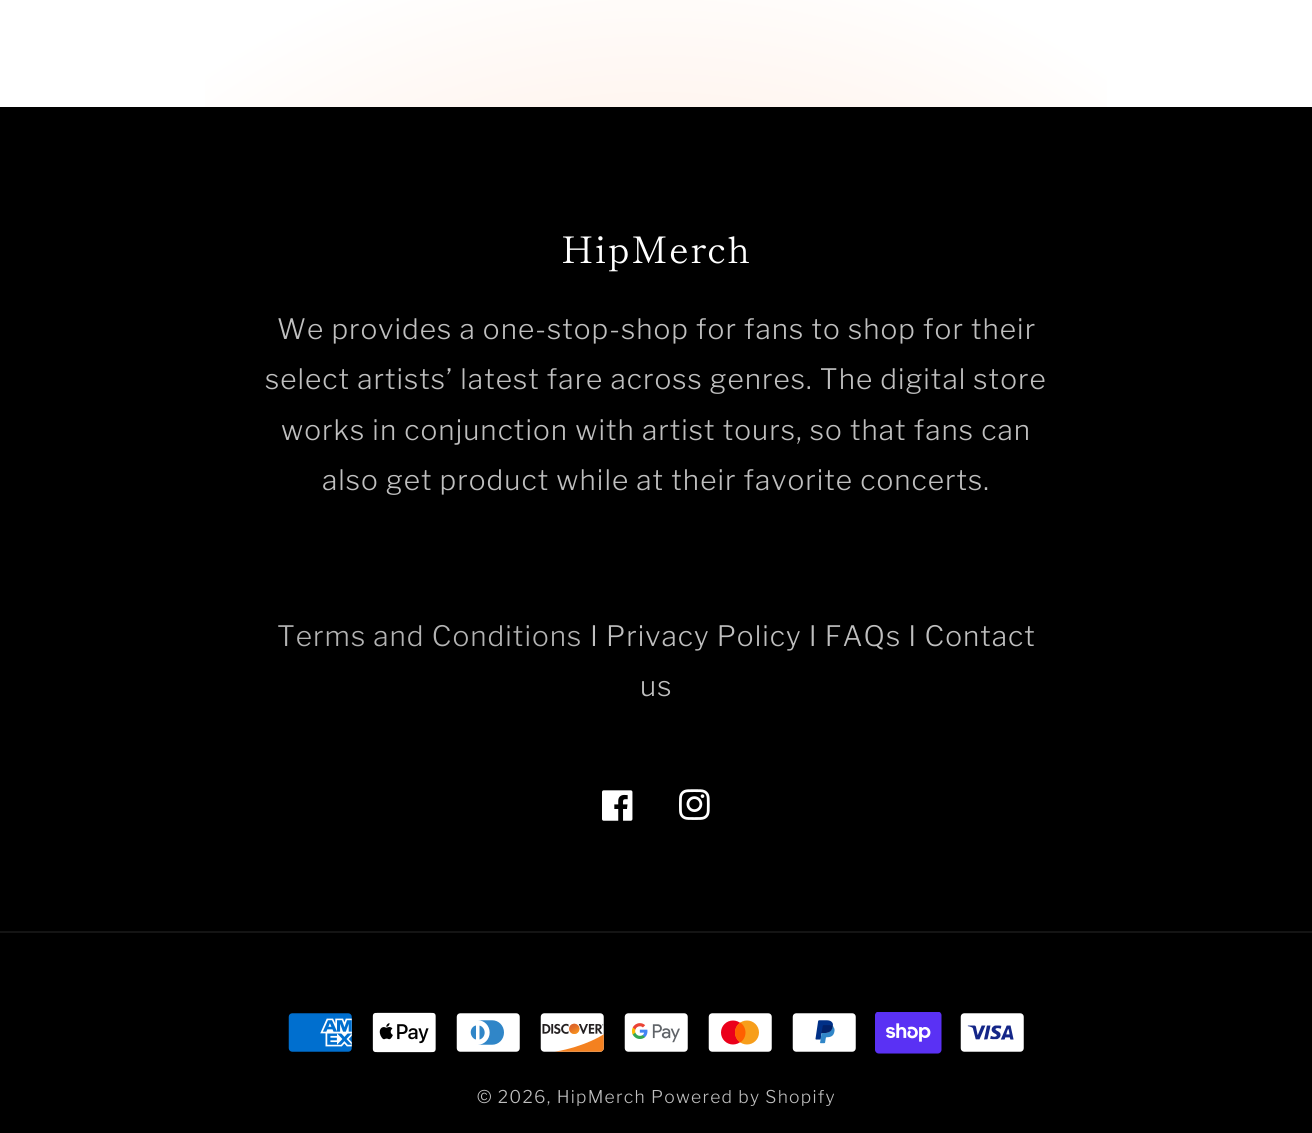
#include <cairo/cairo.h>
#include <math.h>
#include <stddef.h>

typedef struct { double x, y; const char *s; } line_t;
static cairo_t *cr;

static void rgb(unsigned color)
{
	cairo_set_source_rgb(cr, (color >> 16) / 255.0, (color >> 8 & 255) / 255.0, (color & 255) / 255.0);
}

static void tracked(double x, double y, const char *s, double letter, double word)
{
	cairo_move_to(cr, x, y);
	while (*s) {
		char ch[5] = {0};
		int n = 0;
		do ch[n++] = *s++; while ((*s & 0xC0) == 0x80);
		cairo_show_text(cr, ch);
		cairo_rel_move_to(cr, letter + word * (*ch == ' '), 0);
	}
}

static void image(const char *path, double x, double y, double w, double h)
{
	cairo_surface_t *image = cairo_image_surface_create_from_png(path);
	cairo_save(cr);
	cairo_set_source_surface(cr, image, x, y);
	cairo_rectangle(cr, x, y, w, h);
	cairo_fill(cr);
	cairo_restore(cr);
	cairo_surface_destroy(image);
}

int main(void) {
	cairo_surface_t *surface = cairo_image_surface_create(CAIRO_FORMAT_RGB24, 1312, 1133);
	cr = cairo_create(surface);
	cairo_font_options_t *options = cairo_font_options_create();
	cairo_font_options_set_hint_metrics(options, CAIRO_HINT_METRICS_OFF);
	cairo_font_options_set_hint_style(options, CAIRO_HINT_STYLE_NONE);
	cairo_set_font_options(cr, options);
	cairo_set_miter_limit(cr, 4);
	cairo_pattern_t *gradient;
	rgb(0xffffff);
	cairo_paint(cr);
	gradient = cairo_pattern_create_radial(0, 0, 0, 0, 0, 1);
	cairo_pattern_set_matrix(gradient, &(cairo_matrix_t){1.0 / 928, 0, 0, 1.0 / 802, -1.0 * 656 / 928, -1.0 * 567 / 802});
	cairo_pattern_add_color_stop_rgba(gradient, 0, 1, 0.867, 0.788, 1);
	cairo_pattern_add_color_stop_rgba(gradient, 0.79, 1, 1, 1, 1);
	cairo_pattern_add_color_stop_rgba(gradient, 0.97, 1, 1, 1, 1);
	cairo_set_source(cr, gradient);
	cairo_pattern_destroy(gradient);
	cairo_rectangle(cr, 205, 0, 902, 107);
	cairo_fill(cr);
	rgb(0x000000);
	cairo_rectangle(cr, 0, 107, 1312, 1026);
	cairo_fill(cr);
	image("img/1.png", 602, 790, 31, 31);
	image("img/2.png", 679, 789, 31, 31);
	rgb(0x141414);
	cairo_rectangle(cr, 0, 931, 1312, 2);
	cairo_fill(cr);
	image("img/3.png", 288, 1013, 64, 39);
	image("img/4.png", 372, 1012, 64, 41);
	image("img/5.png", 456, 1013, 64, 39);
	image("img/6.png", 540, 1013, 64, 39);
	image("img/7.png", 624, 1013, 64, 39);
	image("img/8.png", 708, 1013, 64, 39);
	image("img/9.png", 792, 1013, 64, 39);
	image("img/10.png", 875, 1012, 67, 42);
	image("img/11.png", 960, 1013, 64, 39);
	cairo_select_font_face(cr, "Shippori Mincho", CAIRO_FONT_SLANT_NORMAL, CAIRO_FONT_WEIGHT_NORMAL);
	cairo_set_font_size(cr, 36.5);
	rgb(0xffffff);
	tracked(561, 263, "HipMerch", 1.25, 0);
	cairo_select_font_face(cr, "Libre Franklin Light", CAIRO_FONT_SLANT_NORMAL, CAIRO_FONT_WEIGHT_NORMAL);
	cairo_set_font_size(cr, 28);
	rgb(0xbfbfbf);
	{
		static const line_t items[] = {
			{277, 339, "We provides a one-stop-shop for fans to shop for their"},
			{265, 389, "select artists’ latest fare across genres. The digital store"},
			{281, 440, "works in conjunction with artist tours, so that fans can"},
			{322, 490, "also get product while at their favorite concerts."},
		};
		for (size_t i = 0; i < sizeof items / sizeof *items; i++) {
			tracked(items[i].x, items[i].y, items[i].s, 1.05, 0);
		}
	}
	rgb(0xb3b3b3);
	tracked(277, 646, "Terms and Conditions", 1.05, 0);
	rgb(0xbfbfbf);
	tracked(590, 646, "I Privacy Policy I FAQs I Contact", 1.05, 0);
	tracked(640, 696, "us", 1.05, 0);
	cairo_set_font_size(cr, 17.5);
	tracked(477, 1103, "© 2026, HipMerch", 1.25, 0);
	tracked(651, 1103, "Powered by Shopify", 1.25, 0);
	cairo_surface_write_to_png(surface, "page.png");
	cairo_font_options_destroy(options);
	cairo_destroy(cr);
	cairo_surface_destroy(surface);
	return 0;
}
